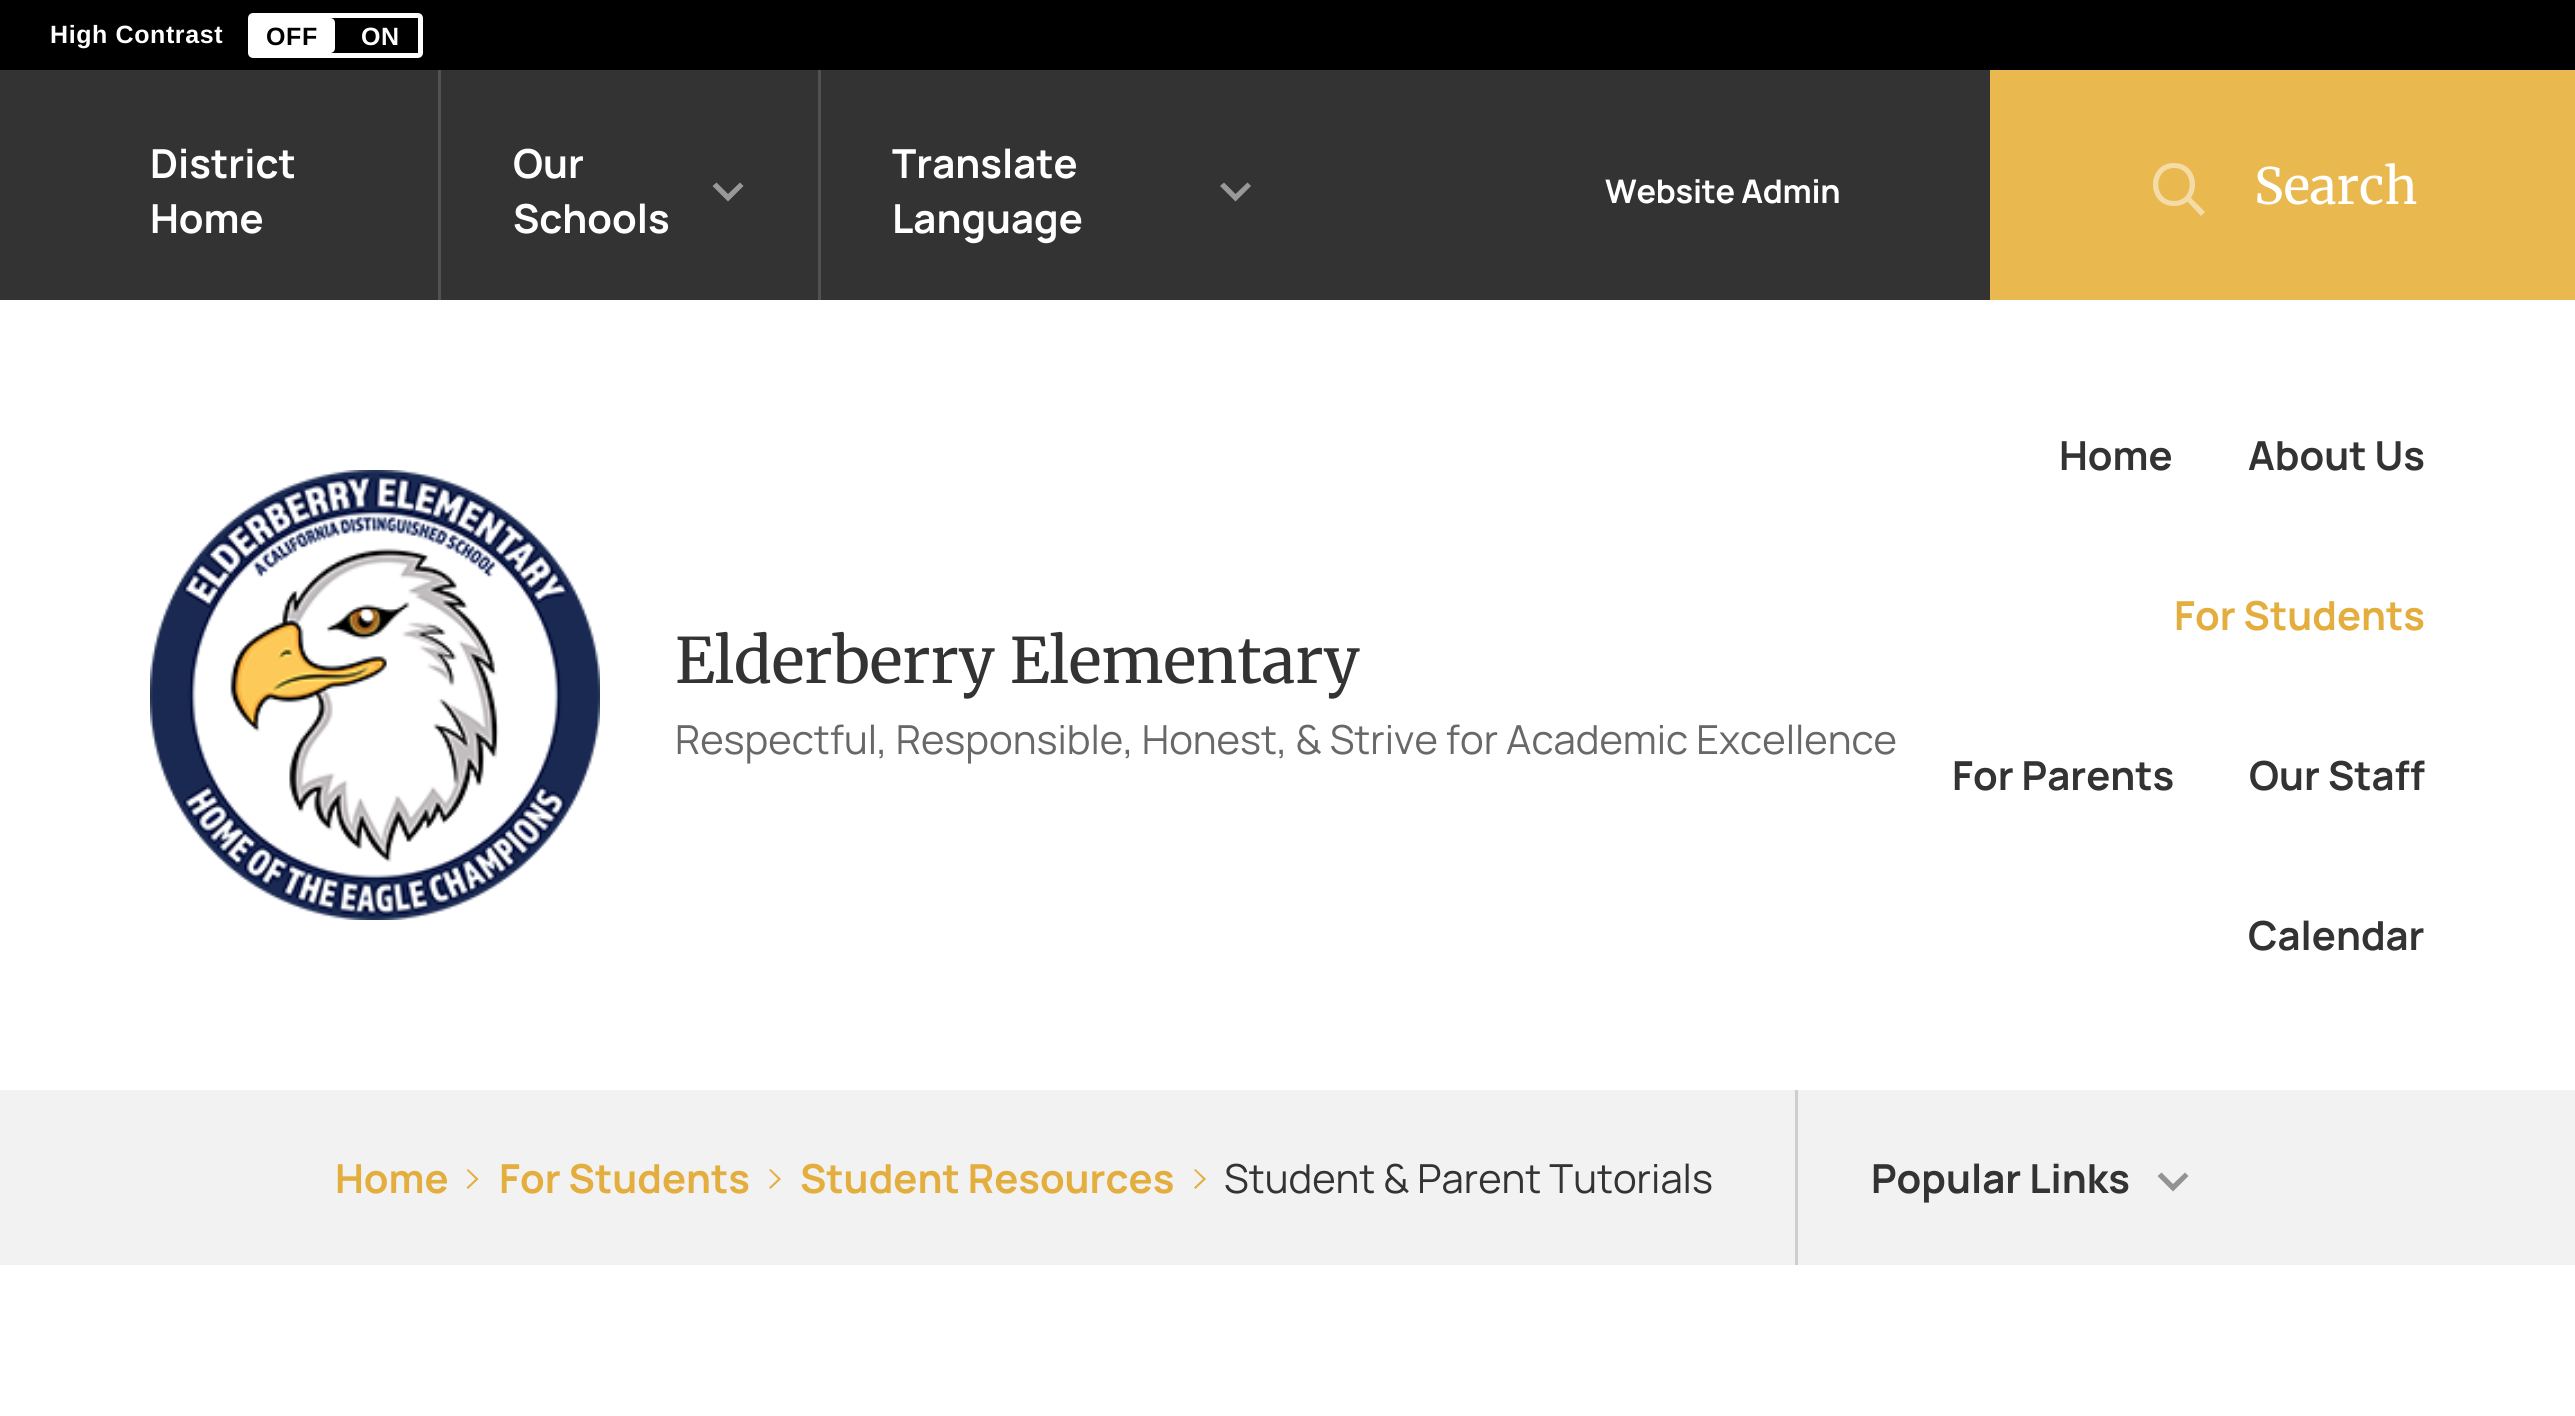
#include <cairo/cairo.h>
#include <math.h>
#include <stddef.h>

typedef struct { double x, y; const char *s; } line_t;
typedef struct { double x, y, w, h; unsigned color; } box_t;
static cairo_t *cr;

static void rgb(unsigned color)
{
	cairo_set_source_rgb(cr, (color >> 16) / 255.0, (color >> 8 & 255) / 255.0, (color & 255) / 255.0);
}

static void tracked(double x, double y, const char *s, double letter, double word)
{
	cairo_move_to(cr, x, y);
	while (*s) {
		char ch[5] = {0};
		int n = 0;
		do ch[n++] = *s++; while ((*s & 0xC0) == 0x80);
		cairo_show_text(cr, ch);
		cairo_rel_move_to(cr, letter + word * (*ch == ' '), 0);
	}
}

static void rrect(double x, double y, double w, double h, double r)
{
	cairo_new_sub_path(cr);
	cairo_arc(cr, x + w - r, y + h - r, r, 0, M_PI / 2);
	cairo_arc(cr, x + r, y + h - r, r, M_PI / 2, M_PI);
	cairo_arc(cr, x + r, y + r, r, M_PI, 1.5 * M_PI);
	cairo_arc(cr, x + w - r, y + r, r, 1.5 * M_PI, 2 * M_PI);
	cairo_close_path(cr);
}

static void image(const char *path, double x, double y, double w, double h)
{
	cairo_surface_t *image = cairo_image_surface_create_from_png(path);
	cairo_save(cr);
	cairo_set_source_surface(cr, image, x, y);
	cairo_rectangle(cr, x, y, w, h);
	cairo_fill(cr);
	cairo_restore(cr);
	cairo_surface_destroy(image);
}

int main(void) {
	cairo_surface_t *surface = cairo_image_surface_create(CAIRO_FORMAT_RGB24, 2575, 1416);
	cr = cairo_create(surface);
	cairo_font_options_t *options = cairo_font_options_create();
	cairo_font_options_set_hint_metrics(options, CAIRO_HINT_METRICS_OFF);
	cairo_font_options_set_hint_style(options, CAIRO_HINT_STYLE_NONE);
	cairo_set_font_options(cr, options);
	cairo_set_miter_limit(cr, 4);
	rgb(0xffffff);
	cairo_paint(cr);
	rgb(0x000000);
	cairo_rectangle(cr, 0, 0, 2575, 70);
	cairo_fill(cr);
	rrect(250.5, 15.5, 170, 40, 2.5);
	rgb(0xffffff);
	cairo_set_line_width(cr, 5);
	cairo_stroke(cr);
	cairo_new_path(cr);
	cairo_move_to(cr, 253, 18);
	cairo_line_to(cr, 330, 18);
	cairo_curve_to(cr, 333, 18, 335, 20, 335, 23);
	cairo_line_to(cr, 335, 48);
	cairo_curve_to(cr, 335, 51, 333, 53, 330, 53);
	cairo_line_to(cr, 253, 53);
	cairo_close_path(cr);
	cairo_fill(cr);
	{
		static const box_t items[] = {
			{0, 70, 1990, 230, 0x333333},
			{438, 70, 3, 230, 0x525252},
			{818, 70, 3, 230, 0x525252},
		};
		for (size_t i = 0; i < sizeof items / sizeof *items; i++) {
			rgb(items[i].color);
			cairo_rectangle(cr, items[i].x, items[i].y, items[i].w, items[i].h);
			cairo_fill(cr);
		}
	}
	rgb(0x999999);
	cairo_new_path(cr);
	cairo_move_to(cr, 728, 201.5);
	cairo_line_to(cr, 712.5, 186);
	cairo_line_to(cr, 716.5, 182.5);
	cairo_line_to(cr, 728, 194);
	cairo_line_to(cr, 740, 182.5);
	cairo_line_to(cr, 743.5, 186);
	cairo_close_path(cr);
	cairo_fill(cr);
	cairo_new_path(cr);
	cairo_move_to(cr, 1235.5, 201.5);
	cairo_line_to(cr, 1220, 186);
	cairo_line_to(cr, 1224, 182.5);
	cairo_line_to(cr, 1235.5, 194);
	cairo_line_to(cr, 1247.5, 182.5);
	cairo_line_to(cr, 1251, 186);
	cairo_close_path(cr);
	cairo_fill(cr);
	rgb(0xe9b950);
	cairo_rectangle(cr, 1990, 70, 585, 230);
	cairo_fill(cr);
	rgb(0xf4dca8);
	cairo_new_path(cr);
	cairo_move_to(cr, 2174, 206);
	cairo_curve_to(cr, 2146, 206, 2146, 163, 2174, 163);
	cairo_curve_to(cr, 2202, 163, 2202, 206, 2174, 206);
	cairo_close_path(cr);
	cairo_move_to(cr, 2174, 168);
	cairo_curve_to(cr, 2153, 168, 2153, 201, 2174, 201);
	cairo_curve_to(cr, 2195, 201, 2195, 168, 2174, 168);
	cairo_close_path(cr);
	cairo_move_to(cr, 2186, 200);
	cairo_line_to(cr, 2190, 197);
	cairo_line_to(cr, 2205, 212);
	cairo_line_to(cr, 2201, 216);
	cairo_close_path(cr);
	cairo_fill(cr);
	image("img/1.png", 150, 470, 450, 450);
	rgb(0xf2f2f2);
	cairo_rectangle(cr, 0, 1090, 2575, 175);
	cairo_fill(cr);
	rgb(0xe3ae3e);
	cairo_new_path(cr);
	cairo_move_to(cr, 468, 1189);
	cairo_line_to(cr, 466.5, 1187.5);
	cairo_line_to(cr, 475.5, 1179);
	cairo_line_to(cr, 466.5, 1170);
	cairo_line_to(cr, 468, 1169);
	cairo_line_to(cr, 478.5, 1179);
	cairo_close_path(cr);
	cairo_fill(cr);
	cairo_new_path(cr);
	cairo_move_to(cr, 770.5, 1189);
	cairo_line_to(cr, 769, 1187.5);
	cairo_line_to(cr, 778, 1179);
	cairo_line_to(cr, 769, 1170);
	cairo_line_to(cr, 770.5, 1169);
	cairo_line_to(cr, 781, 1179);
	cairo_close_path(cr);
	cairo_fill(cr);
	cairo_new_path(cr);
	cairo_move_to(cr, 1195.5, 1189);
	cairo_line_to(cr, 1194, 1187.5);
	cairo_line_to(cr, 1203, 1179);
	cairo_line_to(cr, 1194, 1170);
	cairo_line_to(cr, 1195.5, 1169);
	cairo_line_to(cr, 1206, 1179);
	cairo_close_path(cr);
	cairo_fill(cr);
	rgb(0xcecece);
	cairo_rectangle(cr, 1795, 1090, 3, 175);
	cairo_fill(cr);
	rgb(0x939393);
	cairo_new_path(cr);
	cairo_move_to(cr, 2173, 1191.5);
	cairo_line_to(cr, 2157.5, 1176);
	cairo_line_to(cr, 2161.5, 1172.5);
	cairo_line_to(cr, 2173, 1184);
	cairo_line_to(cr, 2185, 1172.5);
	cairo_line_to(cr, 2188.5, 1176);
	cairo_close_path(cr);
	cairo_fill(cr);
	cairo_select_font_face(cr, "Liberation Sans", CAIRO_FONT_SLANT_NORMAL, CAIRO_FONT_WEIGHT_BOLD);
	cairo_set_font_size(cr, 25);
	rgb(0xffffff);
	tracked(50, 43, "High Contrast", 0.6, 0);
	rgb(0x000000);
	tracked(266, 45, "OFF", 0.6, 0);
	rgb(0xffffff);
	tracked(361, 45, "ON", 0.6, 0);
	cairo_select_font_face(cr, "Manrope", CAIRO_FONT_SLANT_NORMAL, CAIRO_FONT_WEIGHT_BOLD);
	cairo_set_font_size(cr, 40);
	{
		static const line_t items[] = {
			{150, 178, "District"},
			{150, 233, "Home"},
			{513, 178, "Our"},
			{513, 233, "Schools"},
			{892, 178, "Translate"},
			{892, 233, "Language"},
		};
		for (size_t i = 0; i < sizeof items / sizeof *items; i++) {
			cairo_move_to(cr, items[i].x, items[i].y);
			cairo_show_text(cr, items[i].s);
		}
	}
	cairo_set_font_size(cr, 32.5);
	tracked(1605, 203, "Website Admin", -0.25, 0);
	cairo_select_font_face(cr, "Merriweather", CAIRO_FONT_SLANT_NORMAL, CAIRO_FONT_WEIGHT_NORMAL);
	cairo_set_font_size(cr, 50);
	cairo_move_to(cr, 2254, 204);
	cairo_show_text(cr, "Search");
	cairo_set_font_size(cr, 62.5);
	rgb(0x333333);
	cairo_move_to(cr, 675, 683);
	cairo_show_text(cr, "Elderberry Elementary");
	cairo_select_font_face(cr, "Manrope", CAIRO_FONT_SLANT_NORMAL, CAIRO_FONT_WEIGHT_NORMAL);
	cairo_set_font_size(cr, 40);
	rgb(0x686868);
	cairo_move_to(cr, 675, 754);
	cairo_show_text(cr, "Respectful, Responsible, Honest, & Strive for Academic Excellence");
	cairo_select_font_face(cr, "Manrope", CAIRO_FONT_SLANT_NORMAL, CAIRO_FONT_WEIGHT_BOLD);
	rgb(0x333333);
	cairo_move_to(cr, 2059, 470);
	cairo_show_text(cr, "Home");
	cairo_move_to(cr, 2248, 470);
	cairo_show_text(cr, "About Us");
	rgb(0xe3ae3e);
	cairo_move_to(cr, 2174, 630);
	cairo_show_text(cr, "For Students");
	rgb(0x333333);
	{
		static const line_t items[] = {
			{1952, 790, "For Parents"},
			{2249, 790, "Our Staff"},
			{2248, 950, "Calendar"},
		};
		for (size_t i = 0; i < sizeof items / sizeof *items; i++) {
			cairo_move_to(cr, items[i].x, items[i].y);
			cairo_show_text(cr, items[i].s);
		}
	}
	rgb(0xe3ae3e);
	{
		static const line_t items[] = {
			{335, 1193, "Home"},
			{499, 1193, "For Students"},
			{800, 1193, "Student Resources"},
		};
		for (size_t i = 0; i < sizeof items / sizeof *items; i++) {
			cairo_move_to(cr, items[i].x, items[i].y);
			cairo_show_text(cr, items[i].s);
		}
	}
	cairo_select_font_face(cr, "Manrope", CAIRO_FONT_SLANT_NORMAL, CAIRO_FONT_WEIGHT_NORMAL);
	rgb(0x333333);
	cairo_move_to(cr, 1224, 1193);
	cairo_show_text(cr, "Student & Parent Tutorials");
	cairo_select_font_face(cr, "Manrope", CAIRO_FONT_SLANT_NORMAL, CAIRO_FONT_WEIGHT_BOLD);
	cairo_move_to(cr, 1871, 1193);
	cairo_show_text(cr, "Popular Links");
	cairo_surface_write_to_png(surface, "page.png");
	cairo_font_options_destroy(options);
	cairo_destroy(cr);
	cairo_surface_destroy(surface);
	return 0;
}
